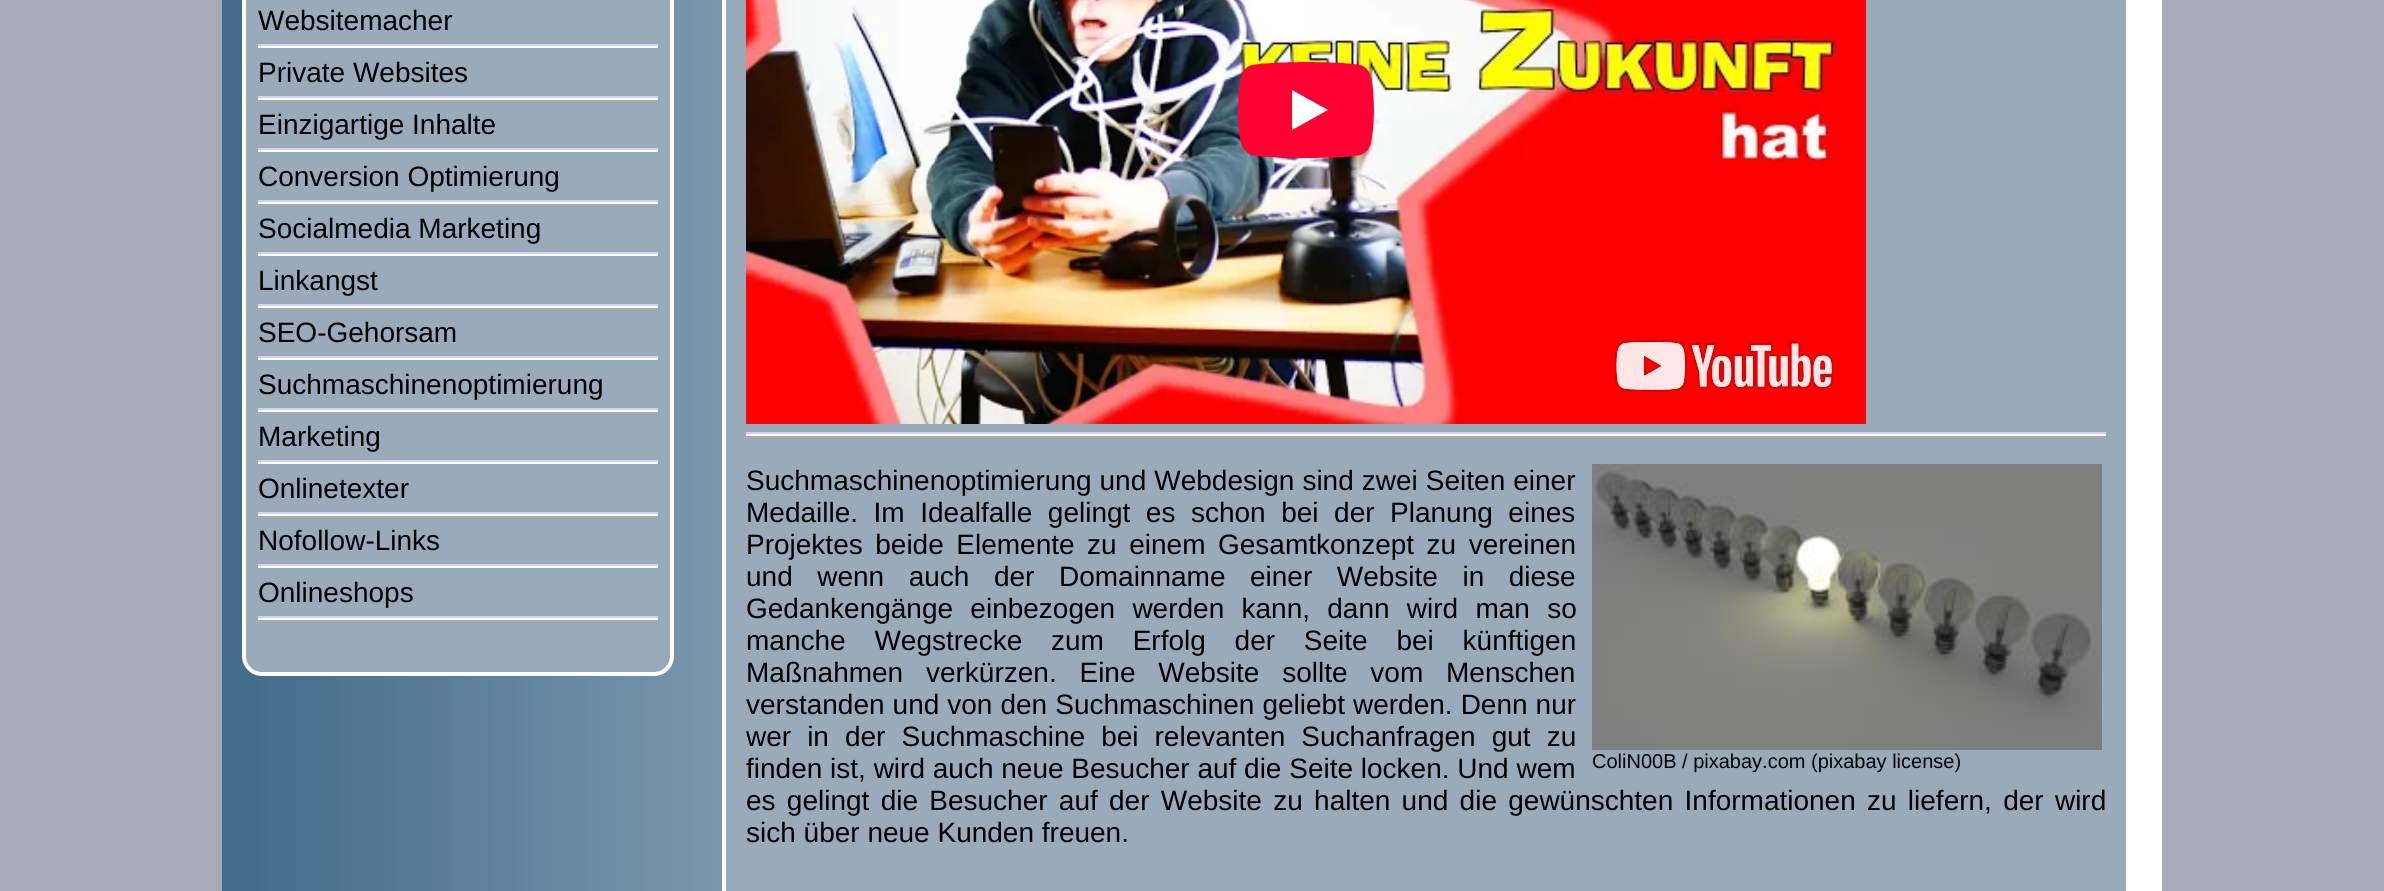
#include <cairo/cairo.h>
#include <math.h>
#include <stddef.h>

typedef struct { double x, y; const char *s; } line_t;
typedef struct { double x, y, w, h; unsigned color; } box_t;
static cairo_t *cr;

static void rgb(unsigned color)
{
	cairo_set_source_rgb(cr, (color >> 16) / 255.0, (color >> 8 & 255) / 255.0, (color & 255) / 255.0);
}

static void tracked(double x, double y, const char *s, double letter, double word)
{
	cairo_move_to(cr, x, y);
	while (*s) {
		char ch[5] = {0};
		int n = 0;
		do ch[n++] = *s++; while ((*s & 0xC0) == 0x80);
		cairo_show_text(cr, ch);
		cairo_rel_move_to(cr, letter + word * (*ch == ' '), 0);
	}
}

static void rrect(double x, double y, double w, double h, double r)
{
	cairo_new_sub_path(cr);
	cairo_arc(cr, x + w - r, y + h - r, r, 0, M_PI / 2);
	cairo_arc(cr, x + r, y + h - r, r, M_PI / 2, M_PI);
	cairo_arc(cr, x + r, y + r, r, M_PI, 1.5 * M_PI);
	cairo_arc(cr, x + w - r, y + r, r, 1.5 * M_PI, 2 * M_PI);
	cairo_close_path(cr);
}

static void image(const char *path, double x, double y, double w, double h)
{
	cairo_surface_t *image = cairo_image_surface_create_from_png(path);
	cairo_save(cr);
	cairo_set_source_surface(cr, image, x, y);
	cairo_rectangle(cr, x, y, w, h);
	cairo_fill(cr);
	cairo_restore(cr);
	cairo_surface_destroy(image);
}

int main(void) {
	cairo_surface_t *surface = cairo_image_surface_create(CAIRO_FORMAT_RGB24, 2384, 891);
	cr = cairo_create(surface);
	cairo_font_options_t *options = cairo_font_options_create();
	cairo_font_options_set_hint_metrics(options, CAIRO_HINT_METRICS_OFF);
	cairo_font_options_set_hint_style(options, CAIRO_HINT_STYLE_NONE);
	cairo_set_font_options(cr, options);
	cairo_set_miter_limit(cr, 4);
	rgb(0xa9a9b9);
	cairo_paint(cr);
	image("img/1.png", 222, 0, 1940, 891);
	rgb(0x99aabb);
	rrect(244, -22, 428, 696, 18);
	cairo_fill_preserve(cr);
	rgb(0xffffff);
	cairo_set_line_width(cr, 4);
	cairo_stroke(cr);
	{
		static const box_t items[] = {
			{258, 46, 400, 2, 0xffffff},
			{258, 44, 400, 2, 0xd0d0ff},
			{258, 98, 400, 2, 0xffffff},
			{258, 96, 400, 2, 0xd0d0ff},
			{258, 150, 400, 2, 0xffffff},
			{258, 148, 400, 2, 0xd0d0ff},
			{258, 202, 400, 2, 0xffffff},
			{258, 200, 400, 2, 0xd0d0ff},
			{258, 254, 400, 2, 0xffffff},
			{258, 252, 400, 2, 0xd0d0ff},
			{258, 306, 400, 2, 0xffffff},
			{258, 304, 400, 2, 0xd0d0ff},
			{258, 358, 400, 2, 0xffffff},
			{258, 356, 400, 2, 0xd0d0ff},
			{258, 410, 400, 2, 0xffffff},
			{258, 408, 400, 2, 0xd0d0ff},
			{258, 462, 400, 2, 0xffffff},
			{258, 460, 400, 2, 0xd0d0ff},
			{258, 514, 400, 2, 0xffffff},
			{258, 512, 400, 2, 0xd0d0ff},
			{258, 566, 400, 2, 0xffffff},
			{258, 564, 400, 2, 0xd0d0ff},
			{258, 618, 400, 2, 0xffffff},
			{258, 616, 400, 2, 0xd0d0ff},
		};
		for (size_t i = 0; i < sizeof items / sizeof *items; i++) {
			rgb(items[i].color);
			cairo_rectangle(cr, items[i].x, items[i].y, items[i].w, items[i].h);
			cairo_fill(cr);
		}
	}
	rgb(0x99aabb);
	cairo_rectangle(cr, 724, -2, 1404, 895);
	cairo_fill_preserve(cr);
	rgb(0xffffff);
	cairo_stroke(cr);
	image("img/2.png", 746, 0, 1120, 424);
	cairo_rectangle(cr, 746, 434, 1360, 2);
	cairo_fill(cr);
	rgb(0xd0d0ff);
	cairo_rectangle(cr, 746, 432, 1360, 2);
	cairo_fill(cr);
	image("img/3.png", 1592, 464, 510, 286);
	cairo_select_font_face(cr, "Liberation Sans", CAIRO_FONT_SLANT_NORMAL, CAIRO_FONT_WEIGHT_NORMAL);
	cairo_set_font_size(cr, 28);
	rgb(0x000000);
	{
		static const line_t items[] = {
			{258, 30, "Websitemacher"},
			{258, 82, "Private Websites"},
			{258, 134, "Einzigartige Inhalte"},
			{258, 186, "Conversion Optimierung"},
			{258, 238, "Socialmedia Marketing"},
			{258, 290, "Linkangst"},
			{258, 342, "SEO-Gehorsam"},
			{258, 394, "Suchmaschinenoptimierung"},
			{258, 446, "Marketing"},
			{258, 498, "Onlinetexter"},
			{258, 550, "Nofollow-Links"},
			{258, 602, "Onlineshops"},
		};
		for (size_t i = 0; i < sizeof items / sizeof *items; i++) {
			cairo_move_to(cr, items[i].x, items[i].y);
			cairo_show_text(cr, items[i].s);
		}
	}
	tracked(746, 490, "Suchmaschinenoptimierung und Webdesign sind zwei Seiten einer", 0, 0.25);
	tracked(746, 522, "Medaille. Im Idealfalle gelingt es schon bei der Planung eines", 0, 7.75);
	tracked(746, 554, "Projektes beide Elemente zu einem Gesamtkonzept zu vereinen", 0, 4.75);
	tracked(746, 586, "und wenn auch der Domainname einer Website in diese", 0, 16.75);
	tracked(746, 618, "Gedankengänge einbezogen werden kann, dann wird man so", 0, 9.5);
	tracked(746, 650, "manche Wegstrecke zum Erfolg der Seite bei künftigen", 0, 21);
	tracked(746, 682, "Maßnahmen verkürzen. Eine Website sollte vom Menschen", 0, 15);
	tracked(746, 714, "verstanden und von den Suchmaschinen geliebt werden. Denn nur", 0, 0.25);
	tracked(746, 746, "wer in der Suchmaschine bei relevanten Suchanfragen gut zu", 0, 8.25);
	cairo_move_to(cr, 746, 778);
	cairo_show_text(cr, "finden ist, wird auch neue Besucher auf die Seite locken. Und wem");
	cairo_set_font_size(cr, 20);
	cairo_move_to(cr, 1592, 768);
	cairo_show_text(cr, "ColiN00B / pixabay.com (pixabay license)");
	cairo_set_font_size(cr, 28);
	tracked(746, 810, "es gelingt die Besucher auf der Website zu halten und die gewünschten Informationen zu liefern, der wird", 0, 3.5);
	cairo_move_to(cr, 746, 842);
	cairo_show_text(cr, "sich über neue Kunden freuen.");
	cairo_surface_write_to_png(surface, "page.png");
	cairo_font_options_destroy(options);
	cairo_destroy(cr);
	cairo_surface_destroy(surface);
	return 0;
}
